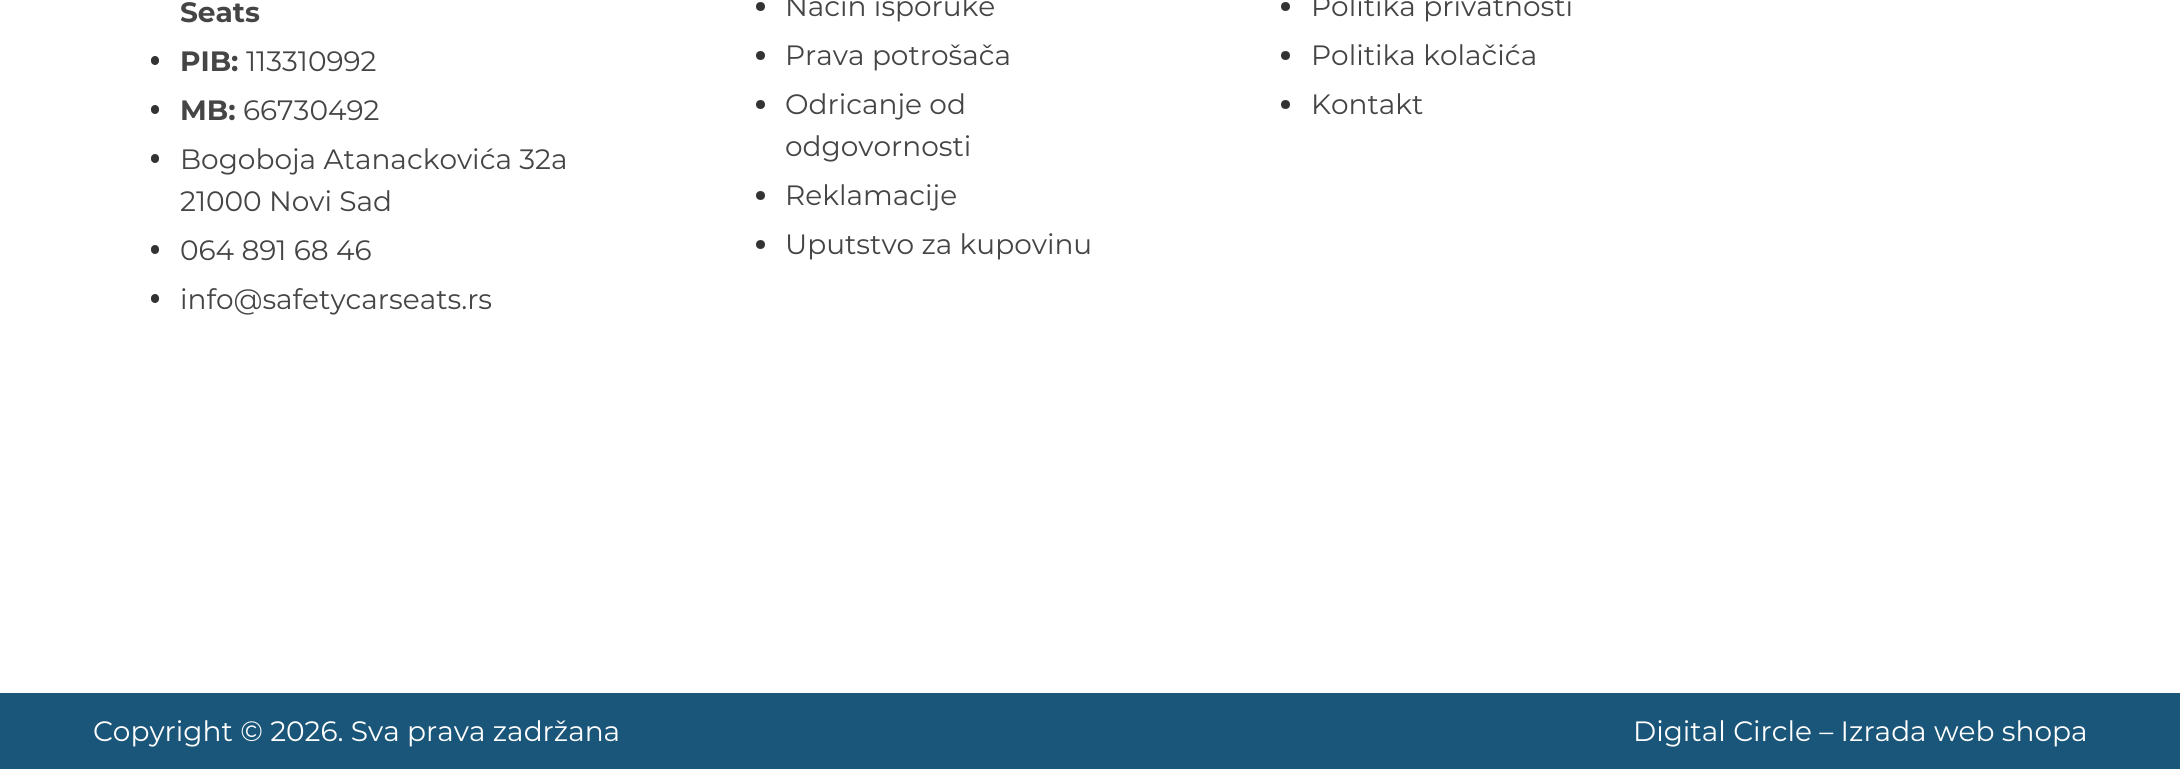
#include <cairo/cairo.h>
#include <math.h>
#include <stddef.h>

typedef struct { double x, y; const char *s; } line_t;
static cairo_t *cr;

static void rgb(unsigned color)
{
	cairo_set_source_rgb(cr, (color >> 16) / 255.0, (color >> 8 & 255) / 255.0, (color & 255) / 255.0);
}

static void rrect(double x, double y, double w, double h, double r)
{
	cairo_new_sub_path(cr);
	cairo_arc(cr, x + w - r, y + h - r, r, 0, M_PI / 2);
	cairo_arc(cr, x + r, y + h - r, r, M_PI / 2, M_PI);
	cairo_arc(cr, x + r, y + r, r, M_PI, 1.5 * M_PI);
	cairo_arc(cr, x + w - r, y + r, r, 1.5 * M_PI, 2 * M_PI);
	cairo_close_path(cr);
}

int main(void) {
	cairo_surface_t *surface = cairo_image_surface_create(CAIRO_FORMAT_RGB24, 2180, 769);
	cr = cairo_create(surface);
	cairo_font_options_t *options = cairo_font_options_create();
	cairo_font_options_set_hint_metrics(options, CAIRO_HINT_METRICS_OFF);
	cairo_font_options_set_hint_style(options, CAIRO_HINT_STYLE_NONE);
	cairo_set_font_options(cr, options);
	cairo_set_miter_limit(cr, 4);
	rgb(0xffffff);
	cairo_paint(cr);
	rgb(0x333333);
	rrect(151, 56, 8, 9, 4);
	cairo_fill(cr);
	rrect(151, 105, 8, 9, 4);
	cairo_fill(cr);
	rrect(151, 154, 8, 9, 4);
	cairo_fill(cr);
	rrect(151, 245, 8, 9, 4);
	cairo_fill(cr);
	rrect(151, 294, 8, 9, 4);
	cairo_fill(cr);
	cairo_arc(cr, 760.5, 6.5, 4.5, 0, 2 * M_PI);
	cairo_fill(cr);
	cairo_arc(cr, 760.5, 55.5, 4.5, 0, 2 * M_PI);
	cairo_fill(cr);
	cairo_arc(cr, 760.5, 104.5, 4.5, 0, 2 * M_PI);
	cairo_fill(cr);
	cairo_arc(cr, 760.5, 195.5, 4.5, 0, 2 * M_PI);
	cairo_fill(cr);
	cairo_arc(cr, 760.5, 244.5, 4.5, 0, 2 * M_PI);
	cairo_fill(cr);
	cairo_arc(cr, 1285.5, 6.5, 4.5, 0, 2 * M_PI);
	cairo_fill(cr);
	cairo_arc(cr, 1285.5, 55.5, 4.5, 0, 2 * M_PI);
	cairo_fill(cr);
	cairo_arc(cr, 1285.5, 104.5, 4.5, 0, 2 * M_PI);
	cairo_fill(cr);
	rgb(0x1a5679);
	cairo_rectangle(cr, 0, 693, 2180, 76);
	cairo_fill(cr);
	cairo_select_font_face(cr, "Montserrat", CAIRO_FONT_SLANT_NORMAL, CAIRO_FONT_WEIGHT_BOLD);
	cairo_set_font_size(cr, 28);
	rgb(0x454545);
	cairo_move_to(cr, 180, 22);
	cairo_show_text(cr, "Seats");
	cairo_move_to(cr, 180, 71);
	cairo_show_text(cr, "PIB:");
	cairo_select_font_face(cr, "Montserrat", CAIRO_FONT_SLANT_NORMAL, CAIRO_FONT_WEIGHT_NORMAL);
	cairo_move_to(cr, 246, 71);
	cairo_show_text(cr, "113310992");
	cairo_select_font_face(cr, "Montserrat", CAIRO_FONT_SLANT_NORMAL, CAIRO_FONT_WEIGHT_BOLD);
	cairo_move_to(cr, 180, 120);
	cairo_show_text(cr, "MB:");
	cairo_select_font_face(cr, "Montserrat", CAIRO_FONT_SLANT_NORMAL, CAIRO_FONT_WEIGHT_NORMAL);
	{
		static const line_t items[] = {
			{243, 120, "66730492"},
			{180, 169, "Bogoboja Atanackovića 32a"},
			{180, 211, "21000 Novi Sad"},
			{180, 260, "064 891 68 46"},
			{180, 309, "info@safetycarseats.rs"},
			{785, 16, "Način isporuke"},
			{785, 65, "Prava potrošača"},
			{785, 114, "Odricanje od"},
			{785, 156, "odgovornosti"},
			{785, 205, "Reklamacije"},
			{785, 254, "Uputstvo za kupovinu"},
			{1311, 16, "Politika privatnosti"},
			{1311, 65, "Politika kolačića"},
			{1311, 114, "Kontakt"},
		};
		for (size_t i = 0; i < sizeof items / sizeof *items; i++) {
			cairo_move_to(cr, items[i].x, items[i].y);
			cairo_show_text(cr, items[i].s);
		}
	}
	rgb(0xffffff);
	cairo_move_to(cr, 93, 741);
	cairo_show_text(cr, "Copyright © 2026. Sva prava zadržana");
	cairo_move_to(cr, 1633, 741);
	cairo_show_text(cr, "Digital Circle – Izrada web shopa");
	cairo_surface_write_to_png(surface, "page.png");
	cairo_font_options_destroy(options);
	cairo_destroy(cr);
	cairo_surface_destroy(surface);
	return 0;
}
